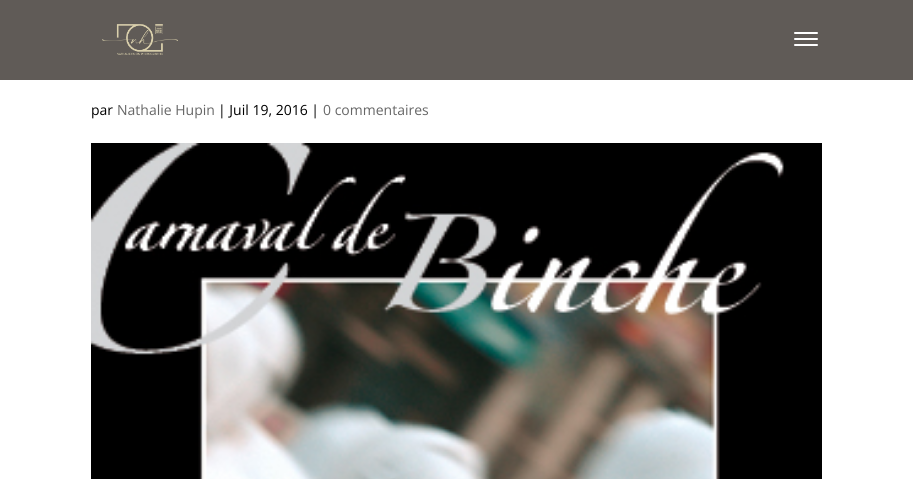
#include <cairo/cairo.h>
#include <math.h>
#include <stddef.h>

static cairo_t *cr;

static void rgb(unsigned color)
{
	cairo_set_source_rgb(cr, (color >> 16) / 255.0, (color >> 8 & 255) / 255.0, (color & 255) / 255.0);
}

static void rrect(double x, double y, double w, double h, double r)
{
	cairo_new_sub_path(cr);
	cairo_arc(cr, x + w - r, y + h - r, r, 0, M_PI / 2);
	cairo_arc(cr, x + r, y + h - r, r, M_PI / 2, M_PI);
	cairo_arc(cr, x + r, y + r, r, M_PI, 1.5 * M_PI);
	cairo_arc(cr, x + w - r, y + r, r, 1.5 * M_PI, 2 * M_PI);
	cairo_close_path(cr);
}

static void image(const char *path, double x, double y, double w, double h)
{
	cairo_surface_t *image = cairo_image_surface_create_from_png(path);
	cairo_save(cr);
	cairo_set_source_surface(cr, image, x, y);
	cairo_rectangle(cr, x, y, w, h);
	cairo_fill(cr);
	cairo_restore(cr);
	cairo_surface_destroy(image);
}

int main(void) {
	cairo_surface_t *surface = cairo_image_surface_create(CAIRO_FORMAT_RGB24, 913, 479);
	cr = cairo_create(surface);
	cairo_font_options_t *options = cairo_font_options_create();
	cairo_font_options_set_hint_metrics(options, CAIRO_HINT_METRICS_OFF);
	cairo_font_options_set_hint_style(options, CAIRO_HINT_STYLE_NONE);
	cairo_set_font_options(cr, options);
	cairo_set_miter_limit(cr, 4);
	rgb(0xffffff);
	cairo_paint(cr);
	cairo_set_source_rgba(cr, 0.22, 0.196, 0.176, 0.8);
	cairo_rectangle(cr, 0, 0, 913, 80);
	cairo_fill(cr);
	image("img/1.png", 102, 24, 76, 31);
	rgb(0xffffff);
	rrect(794, 32, 24, 2, 1);
	cairo_fill(cr);
	rrect(794, 38, 24, 2, 1);
	cairo_fill(cr);
	rrect(794, 44, 24, 2, 1);
	cairo_fill(cr);
	image("img/2.png", 91, 143, 731, 336);
	cairo_select_font_face(cr, "Open Sans", CAIRO_FONT_SLANT_NORMAL, CAIRO_FONT_WEIGHT_NORMAL);
	cairo_set_font_size(cr, 14);
	rgb(0x000000);
	cairo_move_to(cr, 91, 115);
	cairo_show_text(cr, "par");
	rgb(0x666666);
	cairo_move_to(cr, 117, 115);
	cairo_show_text(cr, "Nathalie Hupin");
	rgb(0x000000);
	cairo_move_to(cr, 218, 115);
	cairo_show_text(cr, "| Juil 19, 2016 |");
	rgb(0x666666);
	cairo_move_to(cr, 323, 115);
	cairo_show_text(cr, "0 commentaires");
	cairo_surface_write_to_png(surface, "page.png");
	cairo_font_options_destroy(options);
	cairo_destroy(cr);
	cairo_surface_destroy(surface);
	return 0;
}
